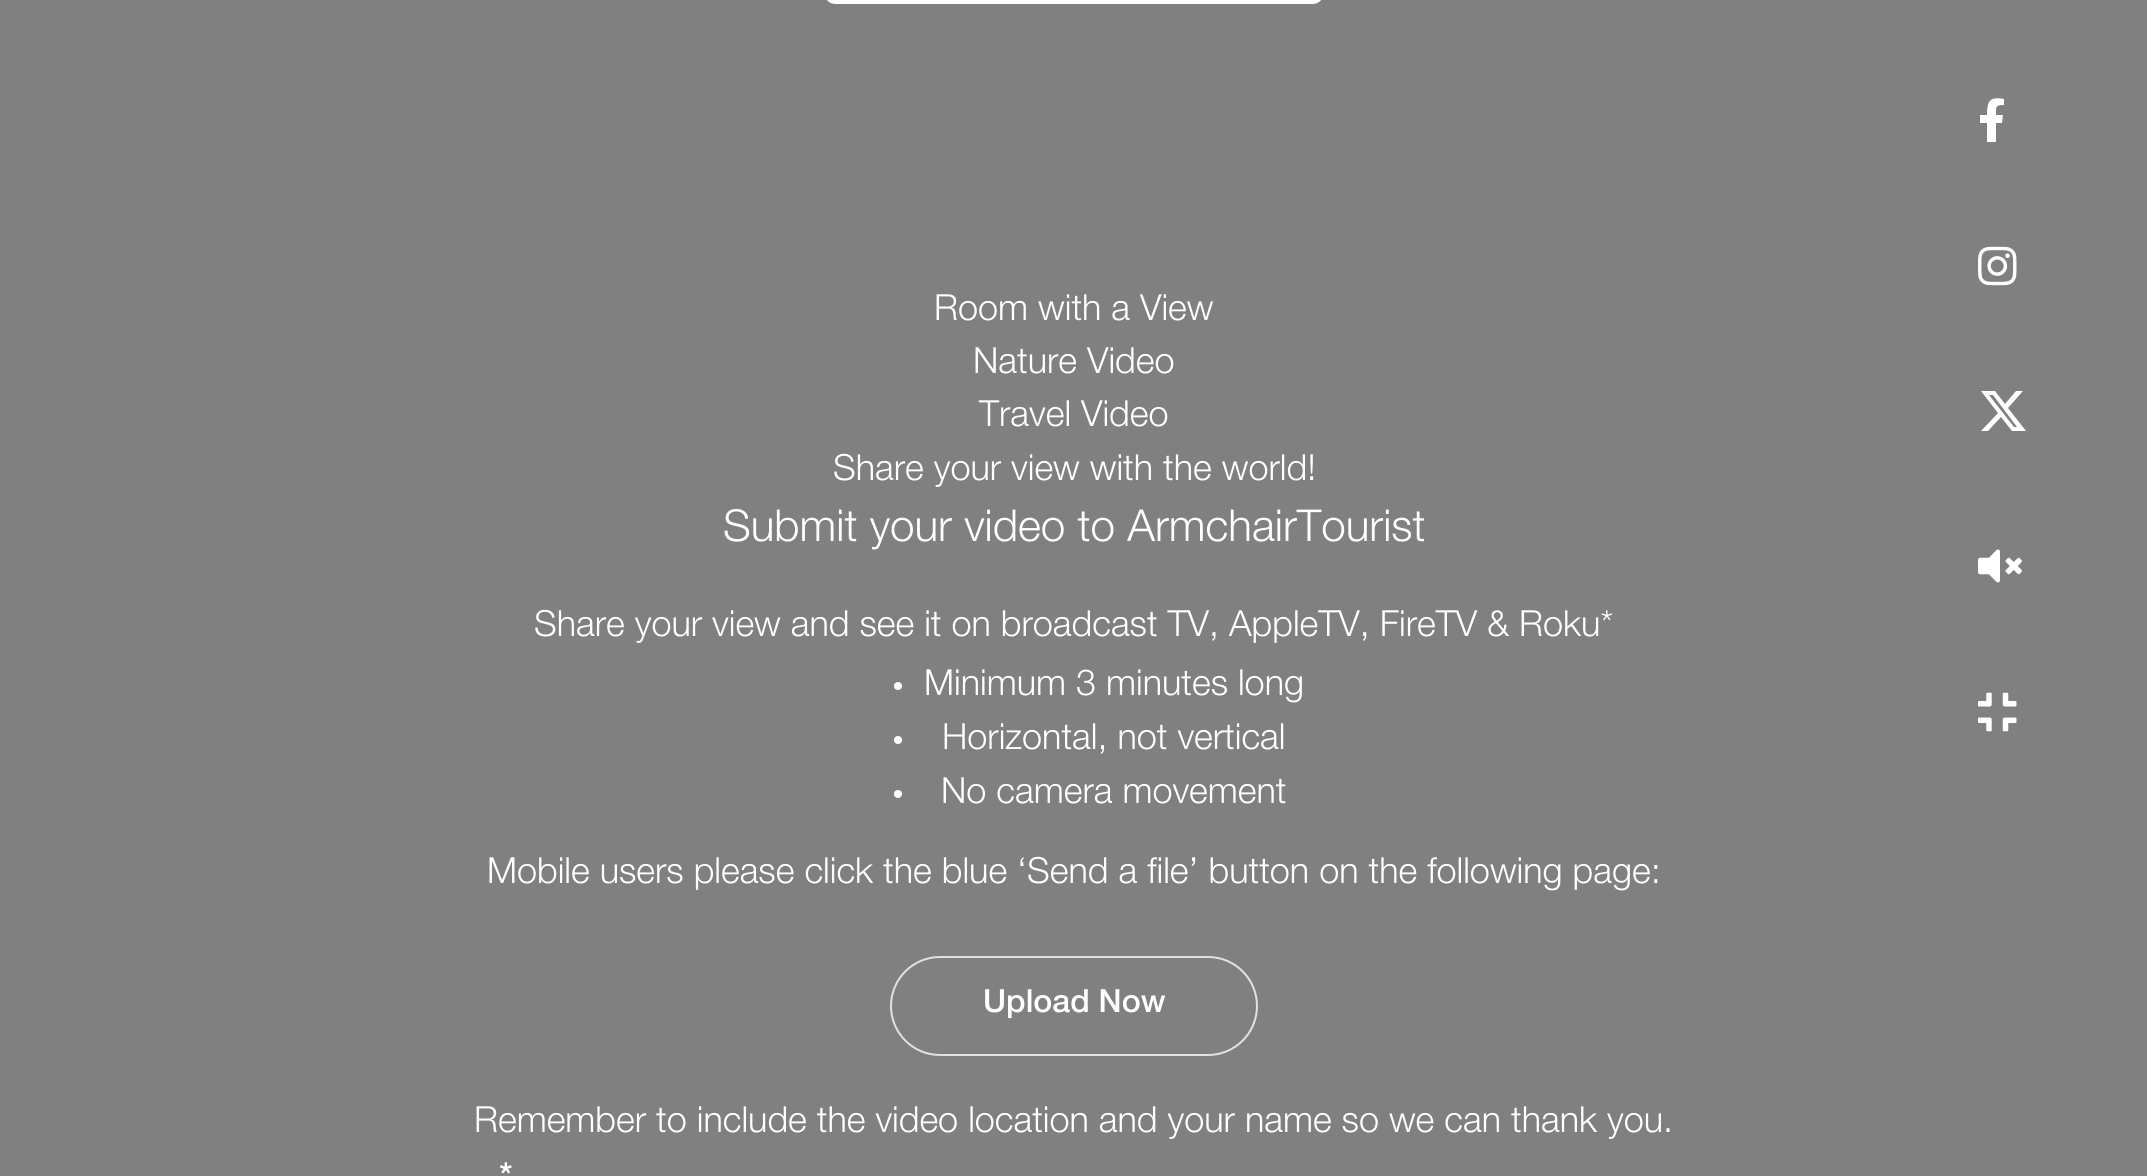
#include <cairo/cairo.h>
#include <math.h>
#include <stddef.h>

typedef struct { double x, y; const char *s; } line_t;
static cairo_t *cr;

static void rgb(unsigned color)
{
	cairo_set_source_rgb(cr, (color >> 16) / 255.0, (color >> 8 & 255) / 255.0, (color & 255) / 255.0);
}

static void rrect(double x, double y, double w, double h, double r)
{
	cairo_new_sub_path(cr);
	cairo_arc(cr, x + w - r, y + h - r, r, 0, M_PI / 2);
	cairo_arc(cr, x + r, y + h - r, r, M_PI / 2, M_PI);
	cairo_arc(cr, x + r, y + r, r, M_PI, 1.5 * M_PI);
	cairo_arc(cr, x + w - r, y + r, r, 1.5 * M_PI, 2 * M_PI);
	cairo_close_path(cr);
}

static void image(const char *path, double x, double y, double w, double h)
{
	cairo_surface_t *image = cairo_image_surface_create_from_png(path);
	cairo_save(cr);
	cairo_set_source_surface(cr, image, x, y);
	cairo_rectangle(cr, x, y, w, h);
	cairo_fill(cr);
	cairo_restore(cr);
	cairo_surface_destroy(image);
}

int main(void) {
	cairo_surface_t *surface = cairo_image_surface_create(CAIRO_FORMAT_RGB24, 2147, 1176);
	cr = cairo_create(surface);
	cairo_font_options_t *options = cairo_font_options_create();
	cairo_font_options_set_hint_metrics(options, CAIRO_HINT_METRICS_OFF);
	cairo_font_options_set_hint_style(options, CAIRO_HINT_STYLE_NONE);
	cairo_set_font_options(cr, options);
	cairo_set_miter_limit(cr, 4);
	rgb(0x808080);
	cairo_paint(cr);
	image("img/1.png", 827, 0, 494, 4);
	rgb(0xffffff);
	cairo_arc(cr, 898, 686, 4, 0, 2 * M_PI);
	cairo_fill(cr);
	cairo_arc(cr, 898, 740, 4, 0, 2 * M_PI);
	cairo_fill(cr);
	cairo_arc(cr, 898, 794, 4, 0, 2 * M_PI);
	cairo_fill(cr);
	rrect(891, 957, 366, 98, 49);
	rgb(0xdee2e6);
	cairo_stroke(cr);
	rgb(0xffffff);
	cairo_new_path(cr);
	cairo_move_to(cr, 2002, 123);
	cairo_line_to(cr, 2003, 115);
	cairo_line_to(cr, 1996, 115);
	cairo_curve_to(cr, 1996, 107, 1995, 105, 2004, 105);
	cairo_line_to(cr, 2004, 99);
	cairo_curve_to(cr, 1989, 96, 1987, 102, 1987, 115);
	cairo_line_to(cr, 1980, 115);
	cairo_line_to(cr, 1980, 123);
	cairo_line_to(cr, 1987, 123);
	cairo_line_to(cr, 1987, 142);
	cairo_line_to(cr, 1996, 142);
	cairo_line_to(cr, 1996, 123);
	cairo_close_path(cr);
	cairo_fill(cr);
	image("img/2.png", 1978, 246, 39, 40);
	cairo_new_path(cr);
	cairo_move_to(cr, 2016, 391);
	cairo_line_to(cr, 2023, 391);
	cairo_line_to(cr, 2008, 408);
	cairo_line_to(cr, 2026, 431);
	cairo_line_to(cr, 2012, 431);
	cairo_line_to(cr, 2001, 417);
	cairo_line_to(cr, 1988, 431);
	cairo_line_to(cr, 1981, 431);
	cairo_line_to(cr, 1998, 413);
	cairo_line_to(cr, 1981, 391);
	cairo_line_to(cr, 1995, 391);
	cairo_line_to(cr, 2005, 404);
	cairo_close_path(cr);
	cairo_move_to(cr, 2014, 427);
	cairo_line_to(cr, 2017, 427);
	cairo_line_to(cr, 1993, 395);
	cairo_line_to(cr, 1989, 395);
	cairo_close_path(cr);
	cairo_fill(cr);
	image("img/3.png", 1978, 549, 44, 34);
	image("img/4.png", 1978, 692, 39, 40);
	cairo_select_font_face(cr, "Helvetica Neue Light", CAIRO_FONT_SLANT_NORMAL, CAIRO_FONT_WEIGHT_NORMAL);
	cairo_set_font_size(cr, 36);
	{
		static const line_t items[] = {
			{934, 320, "Room with a View"},
			{973, 373, "Nature Video"},
			{979, 426, "Travel Video"},
			{833, 480, "Share your view with the world!"},
		};
		for (size_t i = 0; i < sizeof items / sizeof *items; i++) {
			cairo_move_to(cr, items[i].x, items[i].y);
			cairo_show_text(cr, items[i].s);
		}
	}
	cairo_set_font_size(cr, 44);
	cairo_move_to(cr, 723, 541);
	cairo_show_text(cr, "Submit your video to ArmchairTourist");
	cairo_set_font_size(cr, 36);
	{
		static const line_t items[] = {
			{534, 636, "Share your view and see it on broadcast TV, AppleTV, FireTV & Roku*"},
			{924, 695, "Minimum 3 minutes long"},
			{942, 749, "Horizontal, not vertical"},
			{941, 803, "No camera movement"},
			{487, 883, "Mobile users please click the blue ‘Send a file’ button on the following page:"},
		};
		for (size_t i = 0; i < sizeof items / sizeof *items; i++) {
			cairo_move_to(cr, items[i].x, items[i].y);
			cairo_show_text(cr, items[i].s);
		}
	}
	cairo_select_font_face(cr, "Helvetica Neue Medium", CAIRO_FONT_SLANT_NORMAL, CAIRO_FONT_WEIGHT_NORMAL);
	cairo_set_font_size(cr, 32);
	cairo_move_to(cr, 983, 1012);
	cairo_show_text(cr, "Upload Now");
	cairo_select_font_face(cr, "Helvetica Neue Light", CAIRO_FONT_SLANT_NORMAL, CAIRO_FONT_WEIGHT_NORMAL);
	cairo_set_font_size(cr, 36);
	cairo_move_to(cr, 474, 1132);
	cairo_show_text(cr, "Remember to include the video location and your name so we can thank you.");
	cairo_select_font_face(cr, "Helvetica Neue", CAIRO_FONT_SLANT_NORMAL, CAIRO_FONT_WEIGHT_BOLD);
	cairo_move_to(cr, 499, 1189);
	cairo_show_text(cr, "*");
	cairo_surface_write_to_png(surface, "page.png");
	cairo_font_options_destroy(options);
	cairo_destroy(cr);
	cairo_surface_destroy(surface);
	return 0;
}
